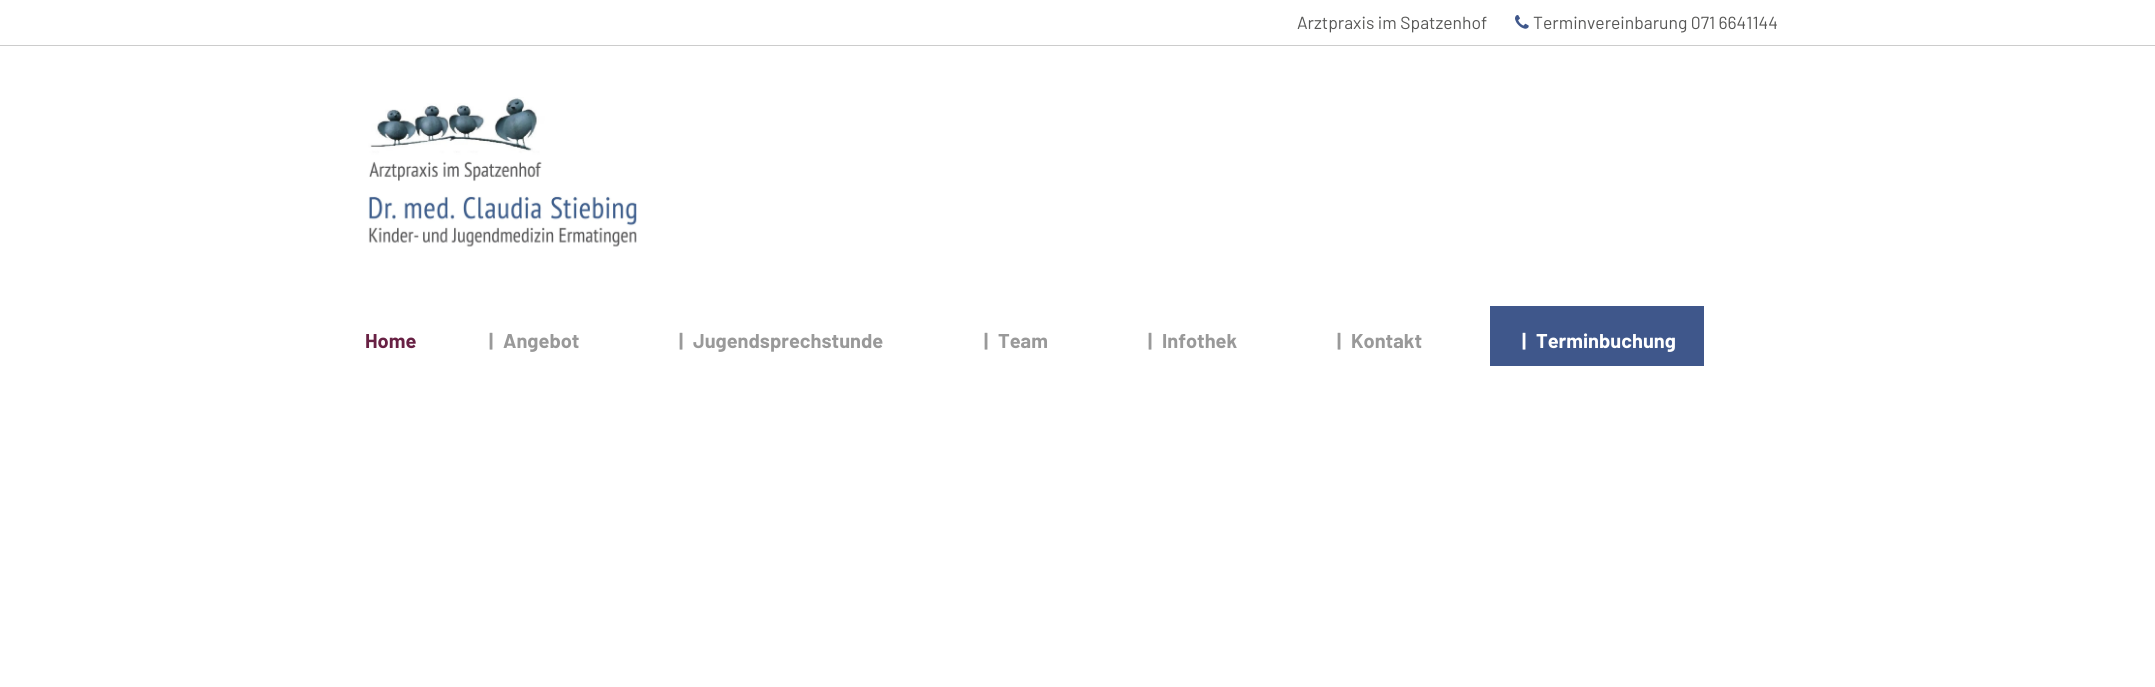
#include <cairo/cairo.h>
#include <math.h>
#include <stddef.h>

typedef struct { double x, y; const char *s; } line_t;
static cairo_t *cr;

static void rgb(unsigned color)
{
	cairo_set_source_rgb(cr, (color >> 16) / 255.0, (color >> 8 & 255) / 255.0, (color & 255) / 255.0);
}

static void image(const char *path, double x, double y, double w, double h)
{
	cairo_surface_t *image = cairo_image_surface_create_from_png(path);
	cairo_save(cr);
	cairo_set_source_surface(cr, image, x, y);
	cairo_rectangle(cr, x, y, w, h);
	cairo_fill(cr);
	cairo_restore(cr);
	cairo_surface_destroy(image);
}

int main(void) {
	cairo_surface_t *surface = cairo_image_surface_create(CAIRO_FORMAT_RGB24, 2155, 687);
	cr = cairo_create(surface);
	cairo_font_options_t *options = cairo_font_options_create();
	cairo_font_options_set_hint_metrics(options, CAIRO_HINT_METRICS_OFF);
	cairo_font_options_set_hint_style(options, CAIRO_HINT_STYLE_NONE);
	cairo_set_font_options(cr, options);
	cairo_set_miter_limit(cr, 4);
	rgb(0xffffff);
	cairo_paint(cr);
	rgb(0xcccccc);
	cairo_rectangle(cr, 0, 45, 2155, 1);
	cairo_fill(cr);
	image("img/1.png", 1515, 15, 14, 14);
	image("img/2.png", 368, 97, 269, 150);
	rgb(0x3f578b);
	cairo_rectangle(cr, 1490, 306, 214, 60);
	cairo_fill(cr);
	cairo_select_font_face(cr, "Barlow", CAIRO_FONT_SLANT_NORMAL, CAIRO_FONT_WEIGHT_NORMAL);
	cairo_set_font_size(cr, 17.5);
	rgb(0x575756);
	cairo_move_to(cr, 1297, 29);
	cairo_show_text(cr, "Arztpraxis im Spatzenhof");
	cairo_move_to(cr, 1533, 29);
	cairo_show_text(cr, "Terminvereinbarung 071 6641144");
	cairo_select_font_face(cr, "Barlow", CAIRO_FONT_SLANT_NORMAL, CAIRO_FONT_WEIGHT_BOLD);
	cairo_set_font_size(cr, 20);
	rgb(0x682144);
	cairo_move_to(cr, 365, 348);
	cairo_show_text(cr, "Home");
	rgb(0x999999);
	{
		static const line_t items[] = {
			{489, 348, "|"},
			{503, 348, "Angebot"},
			{679, 348, "|"},
			{693, 348, "Jugendsprechstunde"},
			{984, 348, "|"},
			{998, 348, "Team"},
			{1148, 348, "|"},
			{1162, 348, "Infothek"},
			{1337, 348, "|"},
			{1351, 348, "Kontakt"},
		};
		for (size_t i = 0; i < sizeof items / sizeof *items; i++) {
			cairo_move_to(cr, items[i].x, items[i].y);
			cairo_show_text(cr, items[i].s);
		}
	}
	rgb(0xffffff);
	cairo_move_to(cr, 1522, 348);
	cairo_show_text(cr, "|");
	cairo_move_to(cr, 1536, 348);
	cairo_show_text(cr, "Terminbuchung");
	cairo_surface_write_to_png(surface, "page.png");
	cairo_font_options_destroy(options);
	cairo_destroy(cr);
	cairo_surface_destroy(surface);
	return 0;
}
